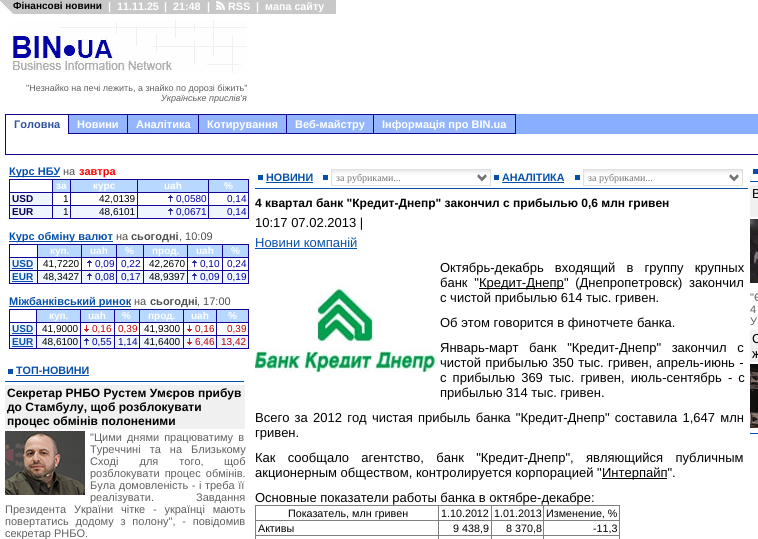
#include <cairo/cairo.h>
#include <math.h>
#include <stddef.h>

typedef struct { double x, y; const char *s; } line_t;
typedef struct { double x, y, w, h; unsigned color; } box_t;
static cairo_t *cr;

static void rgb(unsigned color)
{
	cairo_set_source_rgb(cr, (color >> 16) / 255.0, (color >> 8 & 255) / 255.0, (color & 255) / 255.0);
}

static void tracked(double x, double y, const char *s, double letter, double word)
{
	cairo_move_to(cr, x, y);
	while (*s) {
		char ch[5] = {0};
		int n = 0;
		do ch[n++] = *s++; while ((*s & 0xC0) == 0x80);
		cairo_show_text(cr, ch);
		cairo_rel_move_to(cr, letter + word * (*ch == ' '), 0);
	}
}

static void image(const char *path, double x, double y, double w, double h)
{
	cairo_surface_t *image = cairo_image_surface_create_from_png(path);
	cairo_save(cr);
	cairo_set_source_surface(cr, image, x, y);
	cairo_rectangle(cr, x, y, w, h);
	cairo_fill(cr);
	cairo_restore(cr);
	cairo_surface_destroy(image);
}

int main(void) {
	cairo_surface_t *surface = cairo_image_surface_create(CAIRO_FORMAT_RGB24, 758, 539);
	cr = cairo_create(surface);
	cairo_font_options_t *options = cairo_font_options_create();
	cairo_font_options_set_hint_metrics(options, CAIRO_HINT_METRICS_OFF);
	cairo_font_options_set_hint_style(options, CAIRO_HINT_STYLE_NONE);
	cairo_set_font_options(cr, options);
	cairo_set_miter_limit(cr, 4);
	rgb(0xffffff);
	cairo_paint(cr);
	rgb(0xc8c8c8);
	cairo_rectangle(cr, 0, 0, 336, 14);
	cairo_fill(cr);
	image("img/1.png", 0, 1, 13, 13);
	image("img/2.png", 216, 1, 9, 9);
	image("img/3.png", 10, 20, 237, 53);
	{
		static const box_t items[] = {
			{516, 114, 242, 20, 0x8aaeff},
			{5, 114, 511, 1, 0x120394},
			{68, 114, 1, 20, 0x120394},
			{5, 114, 1, 20, 0x120394},
			{69, 115, 58, 18, 0x95b6ff},
			{127, 114, 1, 20, 0x120394},
			{69, 133, 59, 1, 0x120394},
			{128, 115, 70, 18, 0x95b6ff},
			{198, 114, 1, 20, 0x120394},
			{128, 133, 71, 1, 0x120394},
			{199, 115, 87, 18, 0x95b6ff},
			{286, 114, 1, 20, 0x120394},
			{199, 133, 88, 1, 0x120394},
			{287, 115, 86, 18, 0x95b6ff},
			{373, 114, 1, 20, 0x120394},
			{287, 133, 87, 1, 0x120394},
			{374, 115, 141, 18, 0x95b6ff},
			{515, 114, 1, 20, 0x120394},
			{374, 133, 142, 1, 0x120394},
			{5, 154, 753, 1, 0x120394},
			{5, 134, 1, 21, 0x120394},
			{9, 176, 51, 1, 0x0650ab},
			{9, 179, 240, 1, 0x120394},
			{248, 179, 1, 40, 0x120394},
			{9, 218, 240, 1, 0x120394},
			{9, 179, 1, 40, 0x120394},
			{53, 180, 17, 12, 0xb8d8ff},
			{208, 192, 41, 1, 0x120394},
			{208, 205, 41, 1, 0x120394},
			{208, 205, 1, 14, 0x120394},
			{137, 205, 72, 1, 0x120394},
			{208, 192, 1, 14, 0x120394},
			{137, 192, 72, 1, 0x120394},
			{137, 205, 1, 14, 0x120394},
			{70, 205, 68, 1, 0x120394},
			{137, 192, 1, 14, 0x120394},
			{70, 192, 68, 1, 0x120394},
			{70, 205, 1, 14, 0x120394},
			{52, 205, 19, 1, 0x120394},
			{70, 192, 1, 14, 0x120394},
			{52, 192, 19, 1, 0x120394},
			{52, 205, 1, 14, 0x120394},
			{9, 205, 44, 1, 0x120394},
			{52, 192, 1, 14, 0x120394},
			{9, 192, 44, 1, 0x120394},
			{52, 179, 1, 14, 0x120394},
			{71, 180, 66, 12, 0xb8d8ff},
			{70, 179, 1, 14, 0x120394},
			{138, 180, 70, 12, 0xb8d8ff},
			{137, 179, 1, 14, 0x120394},
			{209, 180, 39, 12, 0xb8d8ff},
			{208, 179, 1, 14, 0x120394},
			{10, 193, 42, 12, 0xeff6ff},
		};
		for (size_t i = 0; i < sizeof items / sizeof *items; i++) {
			rgb(items[i].color);
			cairo_rectangle(cr, items[i].x, items[i].y, items[i].w, items[i].h);
			cairo_fill(cr);
		}
	}
	image("img/4.png", 168, 195, 5, 7);
	{
		static const box_t items[] = {
			{10, 206, 42, 12, 0xeff6ff},
			{53, 206, 17, 12, 0xeff6ff},
			{71, 206, 66, 12, 0xeff6ff},
			{138, 206, 70, 12, 0xeff6ff},
		};
		for (size_t i = 0; i < sizeof items / sizeof *items; i++) {
			rgb(items[i].color);
			cairo_rectangle(cr, items[i].x, items[i].y, items[i].w, items[i].h);
			cairo_fill(cr);
		}
	}
	image("img/5.png", 168, 208, 5, 7);
	{
		static const box_t items[] = {
			{209, 206, 39, 12, 0xeff6ff},
			{9, 241, 104, 1, 0x0650ab},
			{9, 244, 240, 1, 0x120394},
			{248, 244, 1, 40, 0x120394},
			{9, 283, 240, 1, 0x120394},
			{9, 244, 1, 40, 0x120394},
			{38, 245, 43, 12, 0xb8d8ff},
			{222, 257, 27, 1, 0x120394},
			{222, 270, 27, 1, 0x120394},
			{222, 270, 1, 14, 0x120394},
			{187, 270, 36, 1, 0x120394},
			{222, 257, 1, 14, 0x120394},
			{187, 257, 36, 1, 0x120394},
			{187, 270, 1, 14, 0x120394},
			{143, 270, 45, 1, 0x120394},
			{187, 257, 1, 14, 0x120394},
			{143, 257, 45, 1, 0x120394},
			{143, 270, 1, 14, 0x120394},
			{116, 270, 28, 1, 0x120394},
			{143, 257, 1, 14, 0x120394},
			{116, 257, 28, 1, 0x120394},
			{116, 270, 1, 14, 0x120394},
			{81, 270, 36, 1, 0x120394},
			{116, 257, 1, 14, 0x120394},
			{81, 257, 36, 1, 0x120394},
			{81, 270, 1, 14, 0x120394},
			{37, 270, 45, 1, 0x120394},
			{81, 257, 1, 14, 0x120394},
			{37, 257, 45, 1, 0x120394},
			{37, 270, 1, 14, 0x120394},
			{9, 270, 29, 1, 0x120394},
			{37, 257, 1, 14, 0x120394},
			{9, 257, 29, 1, 0x120394},
			{37, 244, 1, 14, 0x120394},
			{82, 245, 34, 12, 0xb8d8ff},
			{81, 244, 1, 14, 0x120394},
			{117, 245, 26, 12, 0xb8d8ff},
			{116, 244, 1, 14, 0x120394},
			{144, 245, 43, 12, 0xb8d8ff},
			{143, 244, 1, 14, 0x120394},
			{188, 245, 34, 12, 0xb8d8ff},
			{187, 244, 1, 14, 0x120394},
			{223, 245, 25, 12, 0xb8d8ff},
			{222, 244, 1, 14, 0x120394},
			{10, 258, 27, 12, 0xeff6ff},
			{12, 268, 21, 1, 0x0650ab},
		};
		for (size_t i = 0; i < sizeof items / sizeof *items; i++) {
			rgb(items[i].color);
			cairo_rectangle(cr, items[i].x, items[i].y, items[i].w, items[i].h);
			cairo_fill(cr);
		}
	}
	image("img/4.png", 87, 260, 5, 7);
	image("img/4.png", 192, 260, 5, 7);
	{
		static const box_t items[] = {
			{10, 271, 27, 12, 0xeff6ff},
			{12, 281, 21, 1, 0x0650ab},
			{38, 271, 43, 12, 0xeff6ff},
			{82, 271, 34, 12, 0xeff6ff},
		};
		for (size_t i = 0; i < sizeof items / sizeof *items; i++) {
			rgb(items[i].color);
			cairo_rectangle(cr, items[i].x, items[i].y, items[i].w, items[i].h);
			cairo_fill(cr);
		}
	}
	image("img/5.png", 87, 273, 5, 7);
	{
		static const box_t items[] = {
			{117, 271, 26, 12, 0xeff6ff},
			{144, 271, 43, 12, 0xeff6ff},
			{188, 271, 34, 12, 0xeff6ff},
		};
		for (size_t i = 0; i < sizeof items / sizeof *items; i++) {
			rgb(items[i].color);
			cairo_rectangle(cr, items[i].x, items[i].y, items[i].w, items[i].h);
			cairo_fill(cr);
		}
	}
	image("img/5.png", 192, 273, 5, 7);
	{
		static const box_t items[] = {
			{223, 271, 25, 12, 0xeff6ff},
			{9, 306, 122, 1, 0x0650ab},
			{9, 309, 240, 1, 0x120394},
			{248, 309, 1, 40, 0x120394},
			{9, 348, 240, 1, 0x120394},
			{9, 309, 1, 40, 0x120394},
			{37, 310, 43, 12, 0xb8d8ff},
			{216, 322, 33, 1, 0x120394},
			{216, 335, 33, 1, 0x120394},
			{216, 335, 1, 14, 0x120394},
			{183, 335, 34, 1, 0x120394},
			{216, 322, 1, 14, 0x120394},
			{183, 322, 34, 1, 0x120394},
			{183, 335, 1, 14, 0x120394},
			{139, 335, 45, 1, 0x120394},
			{183, 322, 1, 14, 0x120394},
			{139, 322, 45, 1, 0x120394},
			{139, 335, 1, 14, 0x120394},
			{114, 335, 26, 1, 0x120394},
			{139, 322, 1, 14, 0x120394},
			{114, 322, 26, 1, 0x120394},
			{114, 335, 1, 14, 0x120394},
			{80, 335, 35, 1, 0x120394},
			{114, 322, 1, 14, 0x120394},
			{80, 322, 35, 1, 0x120394},
			{80, 335, 1, 14, 0x120394},
			{36, 335, 45, 1, 0x120394},
			{80, 322, 1, 14, 0x120394},
			{36, 322, 45, 1, 0x120394},
			{36, 335, 1, 14, 0x120394},
			{9, 335, 28, 1, 0x120394},
			{36, 322, 1, 14, 0x120394},
			{9, 322, 28, 1, 0x120394},
			{36, 309, 1, 14, 0x120394},
			{81, 310, 33, 12, 0xb8d8ff},
			{80, 309, 1, 14, 0x120394},
			{115, 310, 24, 12, 0xb8d8ff},
			{114, 309, 1, 14, 0x120394},
			{140, 310, 43, 12, 0xb8d8ff},
			{139, 309, 1, 14, 0x120394},
			{184, 310, 32, 12, 0xb8d8ff},
			{183, 309, 1, 14, 0x120394},
			{217, 310, 31, 12, 0xb8d8ff},
			{216, 309, 1, 14, 0x120394},
			{10, 323, 26, 12, 0xeff6ff},
			{12, 333, 21, 1, 0x0650ab},
		};
		for (size_t i = 0; i < sizeof items / sizeof *items; i++) {
			rgb(items[i].color);
			cairo_rectangle(cr, items[i].x, items[i].y, items[i].w, items[i].h);
			cairo_fill(cr);
		}
	}
	image("img/6.png", 84, 325, 5, 7);
	image("img/6.png", 187, 325, 5, 7);
	{
		static const box_t items[] = {
			{10, 336, 26, 12, 0xeff6ff},
			{12, 346, 21, 1, 0x0650ab},
			{37, 336, 43, 12, 0xeff6ff},
			{81, 336, 33, 12, 0xeff6ff},
		};
		for (size_t i = 0; i < sizeof items / sizeof *items; i++) {
			rgb(items[i].color);
			cairo_rectangle(cr, items[i].x, items[i].y, items[i].w, items[i].h);
			cairo_fill(cr);
		}
	}
	image("img/5.png", 84, 338, 5, 7);
	{
		static const box_t items[] = {
			{115, 336, 24, 12, 0xeff6ff},
			{140, 336, 43, 12, 0xeff6ff},
			{184, 336, 32, 12, 0xeff6ff},
		};
		for (size_t i = 0; i < sizeof items / sizeof *items; i++) {
			rgb(items[i].color);
			cairo_rectangle(cr, items[i].x, items[i].y, items[i].w, items[i].h);
			cairo_fill(cr);
		}
	}
	image("img/7.png", 187, 338, 5, 7);
	{
		static const box_t items[] = {
			{217, 336, 31, 12, 0xeff6ff},
			{8, 369, 5, 5, 0x0650ab},
			{5, 381, 239, 1, 0x0650ab},
			{16, 375, 73, 1, 0x0650ab},
			{5, 385, 240, 44, 0xf0f0f0},
		};
		for (size_t i = 0; i < sizeof items / sizeof *items; i++) {
			rgb(items[i].color);
			cairo_rectangle(cr, items[i].x, items[i].y, items[i].w, items[i].h);
			cairo_fill(cr);
		}
	}
	image("img/8.png", 5, 431, 80, 64);
	{
		static const box_t items[] = {
			{255, 188, 493, 1, 0x0650ab},
			{258, 175, 5, 5, 0x0650ab},
			{266, 182, 47, 1, 0x0650ab},
			{323, 175, 5, 5, 0x0650ab},
		};
		for (size_t i = 0; i < sizeof items / sizeof *items; i++) {
			rgb(items[i].color);
			cairo_rectangle(cr, items[i].x, items[i].y, items[i].w, items[i].h);
			cairo_fill(cr);
		}
	}
	image("img/9.png", 332, 170, 158, 15);
	cairo_rectangle(cr, 331.5, 169.5, 159, 16);
	rgb(0xe0e0e0);
	cairo_set_line_width(cr, 1);
	cairo_stroke(cr);
	cairo_new_path(cr);
	cairo_move_to(cr, 478, 176);
	cairo_line_to(cr, 482, 180);
	cairo_line_to(cr, 486, 176);
	rgb(0x757575);
	cairo_set_line_width(cr, 2);
	cairo_stroke(cr);
	{
		static const box_t items[] = {
			{494, 175, 5, 5, 0x0650ab},
			{502, 182, 62, 1, 0x0650ab},
			{575, 175, 5, 5, 0x0650ab},
		};
		for (size_t i = 0; i < sizeof items / sizeof *items; i++) {
			rgb(items[i].color);
			cairo_rectangle(cr, items[i].x, items[i].y, items[i].w, items[i].h);
			cairo_fill(cr);
		}
	}
	image("img/9.png", 584, 170, 158, 15);
	cairo_rectangle(cr, 583.5, 169.5, 159, 16);
	rgb(0xe0e0e0);
	cairo_set_line_width(cr, 1);
	cairo_stroke(cr);
	cairo_new_path(cr);
	cairo_move_to(cr, 730, 176);
	cairo_line_to(cr, 734, 180);
	cairo_line_to(cr, 738, 176);
	rgb(0x757575);
	cairo_set_line_width(cr, 2);
	cairo_stroke(cr);
	rgb(0x0650ab);
	cairo_rectangle(cr, 255, 248, 102, 1);
	cairo_fill(cr);
	image("img/10.png", 255, 284, 180, 91);
	{
		static const box_t items[] = {
			{479, 288, 85, 1, 0x000000},
			{602, 478, 65, 1, 0x000000},
			{255, 505, 365, 1, 0x808080},
			{619, 505, 1, 34, 0x808080},
			{255, 505, 1, 34, 0x808080},
			{543, 520, 77, 1, 0x808080},
			{543, 535, 77, 1, 0x808080},
			{543, 535, 1, 4, 0x808080},
			{491, 535, 53, 1, 0x808080},
			{543, 520, 1, 16, 0x808080},
			{491, 520, 53, 1, 0x808080},
			{491, 535, 1, 4, 0x808080},
			{438, 535, 54, 1, 0x808080},
			{491, 520, 1, 16, 0x808080},
			{438, 520, 54, 1, 0x808080},
			{438, 535, 1, 4, 0x808080},
			{255, 535, 184, 1, 0x808080},
			{438, 520, 1, 16, 0x808080},
			{255, 520, 184, 1, 0x808080},
			{438, 505, 1, 16, 0x808080},
			{491, 505, 1, 16, 0x808080},
			{543, 505, 1, 16, 0x808080},
			{750, 433, 8, 1, 0x0650ab},
			{753, 169, 5, 5, 0x0650ab},
			{750, 181, 8, 1, 0x0650ab},
			{750, 185, 8, 32, 0xf0f0f0},
		};
		for (size_t i = 0; i < sizeof items / sizeof *items; i++) {
			rgb(items[i].color);
			cairo_rectangle(cr, items[i].x, items[i].y, items[i].w, items[i].h);
			cairo_fill(cr);
		}
	}
	image("img/11.png", 750, 219, 8, 64);
	cairo_rectangle(cr, 750, 330, 8, 32);
	cairo_fill(cr);
	image("img/12.png", 750, 364, 8, 64);
	cairo_select_font_face(cr, "Liberation Sans", CAIRO_FONT_SLANT_NORMAL, CAIRO_FONT_WEIGHT_BOLD);
	cairo_set_font_size(cr, 10);
	rgb(0x000000);
	cairo_move_to(cr, 13, 9);
	cairo_show_text(cr, "Фінансові новини");
	cairo_set_font_size(cr, 10.75);
	rgb(0xffffff);
	{
		static const line_t items[] = {
			{108, 10, "|"},
			{117, 10, "11.11.25"},
			{164, 10, "|"},
			{173, 10, "21:48"},
			{207, 10, "|"},
			{228, 10, "RSS"},
			{256, 10, "|"},
			{265, 10, "мапа сайту"},
		};
		for (size_t i = 0; i < sizeof items / sizeof *items; i++) {
			cairo_move_to(cr, items[i].x, items[i].y);
			cairo_show_text(cr, items[i].s);
		}
	}
	cairo_select_font_face(cr, "Liberation Sans", CAIRO_FONT_SLANT_NORMAL, CAIRO_FONT_WEIGHT_NORMAL);
	cairo_set_font_size(cr, 9);
	rgb(0x606060);
	cairo_move_to(cr, 26, 91);
	cairo_show_text(cr, "\"Незнайко на печі лежить, а знайко по дорозі біжить\"");
	cairo_select_font_face(cr, "Liberation Sans", CAIRO_FONT_SLANT_ITALIC, CAIRO_FONT_WEIGHT_NORMAL);
	cairo_move_to(cr, 161, 101);
	cairo_show_text(cr, "Українське прислів'я");
	cairo_select_font_face(cr, "Liberation Sans", CAIRO_FONT_SLANT_NORMAL, CAIRO_FONT_WEIGHT_BOLD);
	cairo_set_font_size(cr, 11);
	rgb(0x2f509a);
	cairo_move_to(cr, 14, 128);
	cairo_show_text(cr, "Головна");
	rgb(0xffffff);
	{
		static const line_t items[] = {
			{77, 128, "Новини"},
			{136, 128, "Аналітика"},
			{207, 128, "Котирування"},
			{295, 128, "Веб-майстру"},
			{382, 128, "Інформація про BIN.ua"},
		};
		for (size_t i = 0; i < sizeof items / sizeof *items; i++) {
			cairo_move_to(cr, items[i].x, items[i].y);
			cairo_show_text(cr, items[i].s);
		}
	}
	rgb(0x0650ab);
	cairo_move_to(cr, 9, 175);
	cairo_show_text(cr, "Курс НБУ");
	cairo_select_font_face(cr, "Liberation Sans", CAIRO_FONT_SLANT_NORMAL, CAIRO_FONT_WEIGHT_NORMAL);
	rgb(0x505050);
	cairo_move_to(cr, 63, 175);
	cairo_show_text(cr, "на");
	cairo_select_font_face(cr, "Liberation Sans", CAIRO_FONT_SLANT_NORMAL, CAIRO_FONT_WEIGHT_BOLD);
	rgb(0xff0000);
	cairo_move_to(cr, 79, 175);
	cairo_show_text(cr, "завтра");
	cairo_set_font_size(cr, 10);
	rgb(0xffffff);
	{
		static const line_t items[] = {
			{56, 189, "за"},
			{93, 189, "курс"},
			{164, 189, "uah"},
			{224, 189, "%"},
		};
		for (size_t i = 0; i < sizeof items / sizeof *items; i++) {
			cairo_move_to(cr, items[i].x, items[i].y);
			cairo_show_text(cr, items[i].s);
		}
	}
	rgb(0x090056);
	cairo_move_to(cr, 12, 202);
	cairo_show_text(cr, "USD");
	cairo_select_font_face(cr, "Liberation Sans", CAIRO_FONT_SLANT_NORMAL, CAIRO_FONT_WEIGHT_NORMAL);
	rgb(0x000000);
	cairo_move_to(cr, 63, 202);
	cairo_show_text(cr, "1");
	cairo_move_to(cr, 99, 202);
	cairo_show_text(cr, "42,0139");
	rgb(0x0000a0);
	cairo_move_to(cr, 176, 202);
	cairo_show_text(cr, "0,0580");
	cairo_move_to(cr, 227, 202);
	cairo_show_text(cr, "0,14");
	cairo_select_font_face(cr, "Liberation Sans", CAIRO_FONT_SLANT_NORMAL, CAIRO_FONT_WEIGHT_BOLD);
	rgb(0x090056);
	cairo_move_to(cr, 12, 215);
	cairo_show_text(cr, "EUR");
	cairo_select_font_face(cr, "Liberation Sans", CAIRO_FONT_SLANT_NORMAL, CAIRO_FONT_WEIGHT_NORMAL);
	rgb(0x000000);
	cairo_move_to(cr, 63, 215);
	cairo_show_text(cr, "1");
	cairo_move_to(cr, 99, 215);
	cairo_show_text(cr, "48,6101");
	rgb(0x0000a0);
	cairo_move_to(cr, 176, 215);
	cairo_show_text(cr, "0,0671");
	cairo_move_to(cr, 227, 215);
	cairo_show_text(cr, "0,14");
	cairo_select_font_face(cr, "Liberation Sans", CAIRO_FONT_SLANT_NORMAL, CAIRO_FONT_WEIGHT_BOLD);
	cairo_set_font_size(cr, 11);
	rgb(0x0650ab);
	cairo_move_to(cr, 9, 240);
	cairo_show_text(cr, "Курс обміну валют");
	cairo_select_font_face(cr, "Liberation Sans", CAIRO_FONT_SLANT_NORMAL, CAIRO_FONT_WEIGHT_NORMAL);
	rgb(0x505050);
	cairo_move_to(cr, 116, 240);
	cairo_show_text(cr, "на");
	cairo_select_font_face(cr, "Liberation Sans", CAIRO_FONT_SLANT_NORMAL, CAIRO_FONT_WEIGHT_BOLD);
	cairo_move_to(cr, 131, 240);
	cairo_show_text(cr, "сьогодні");
	cairo_select_font_face(cr, "Liberation Sans", CAIRO_FONT_SLANT_NORMAL, CAIRO_FONT_WEIGHT_NORMAL);
	cairo_move_to(cr, 179, 240);
	cairo_show_text(cr, ", 10:09");
	cairo_select_font_face(cr, "Liberation Sans", CAIRO_FONT_SLANT_NORMAL, CAIRO_FONT_WEIGHT_BOLD);
	cairo_set_font_size(cr, 10);
	rgb(0xffffff);
	{
		static const line_t items[] = {
			{50, 254, "куп."},
			{90, 254, "uah"},
			{125, 254, "%"},
			{152, 254, "прод."},
			{196, 254, "uah"},
			{231, 254, "%"},
		};
		for (size_t i = 0; i < sizeof items / sizeof *items; i++) {
			cairo_move_to(cr, items[i].x, items[i].y);
			cairo_show_text(cr, items[i].s);
		}
	}
	rgb(0x0650ab);
	cairo_move_to(cr, 12, 267);
	cairo_show_text(cr, "USD");
	cairo_select_font_face(cr, "Liberation Sans", CAIRO_FONT_SLANT_NORMAL, CAIRO_FONT_WEIGHT_NORMAL);
	rgb(0x000000);
	cairo_move_to(cr, 43, 267);
	cairo_show_text(cr, "41,7220");
	rgb(0x0000a0);
	cairo_move_to(cr, 95, 267);
	cairo_show_text(cr, "0,09");
	cairo_move_to(cr, 121, 267);
	cairo_show_text(cr, "0,22");
	rgb(0x000000);
	cairo_move_to(cr, 149, 267);
	cairo_show_text(cr, "42,2670");
	rgb(0x0000a0);
	cairo_move_to(cr, 200, 267);
	cairo_show_text(cr, "0,10");
	cairo_move_to(cr, 227, 267);
	cairo_show_text(cr, "0,24");
	cairo_select_font_face(cr, "Liberation Sans", CAIRO_FONT_SLANT_NORMAL, CAIRO_FONT_WEIGHT_BOLD);
	rgb(0x0650ab);
	cairo_move_to(cr, 12, 280);
	cairo_show_text(cr, "EUR");
	cairo_select_font_face(cr, "Liberation Sans", CAIRO_FONT_SLANT_NORMAL, CAIRO_FONT_WEIGHT_NORMAL);
	rgb(0x000000);
	cairo_move_to(cr, 43, 280);
	cairo_show_text(cr, "48,3427");
	rgb(0x0000a0);
	cairo_move_to(cr, 95, 280);
	cairo_show_text(cr, "0,08");
	cairo_move_to(cr, 121, 280);
	cairo_show_text(cr, "0,17");
	rgb(0x000000);
	cairo_move_to(cr, 149, 280);
	cairo_show_text(cr, "48,9397");
	rgb(0x0000a0);
	cairo_move_to(cr, 200, 280);
	cairo_show_text(cr, "0,09");
	cairo_move_to(cr, 227, 280);
	cairo_show_text(cr, "0,19");
	cairo_select_font_face(cr, "Liberation Sans", CAIRO_FONT_SLANT_NORMAL, CAIRO_FONT_WEIGHT_BOLD);
	cairo_set_font_size(cr, 11);
	rgb(0x0650ab);
	cairo_move_to(cr, 9, 305);
	cairo_show_text(cr, "Міжбанківський ринок");
	cairo_select_font_face(cr, "Liberation Sans", CAIRO_FONT_SLANT_NORMAL, CAIRO_FONT_WEIGHT_NORMAL);
	rgb(0x505050);
	cairo_move_to(cr, 134, 305);
	cairo_show_text(cr, "на");
	cairo_select_font_face(cr, "Liberation Sans", CAIRO_FONT_SLANT_NORMAL, CAIRO_FONT_WEIGHT_BOLD);
	cairo_move_to(cr, 150, 305);
	cairo_show_text(cr, "сьогодні");
	cairo_select_font_face(cr, "Liberation Sans", CAIRO_FONT_SLANT_NORMAL, CAIRO_FONT_WEIGHT_NORMAL);
	cairo_move_to(cr, 197, 305);
	cairo_show_text(cr, ", 17:00");
	cairo_select_font_face(cr, "Liberation Sans", CAIRO_FONT_SLANT_NORMAL, CAIRO_FONT_WEIGHT_BOLD);
	cairo_set_font_size(cr, 10);
	rgb(0xffffff);
	{
		static const line_t items[] = {
			{49, 319, "куп."},
			{88, 319, "uah"},
			{122, 319, "%"},
			{148, 319, "прод."},
			{191, 319, "uah"},
			{228, 319, "%"},
		};
		for (size_t i = 0; i < sizeof items / sizeof *items; i++) {
			cairo_move_to(cr, items[i].x, items[i].y);
			cairo_show_text(cr, items[i].s);
		}
	}
	rgb(0x0650ab);
	cairo_move_to(cr, 12, 332);
	cairo_show_text(cr, "USD");
	cairo_select_font_face(cr, "Liberation Sans", CAIRO_FONT_SLANT_NORMAL, CAIRO_FONT_WEIGHT_NORMAL);
	rgb(0x000000);
	cairo_move_to(cr, 42, 332);
	cairo_show_text(cr, "41,9000");
	rgb(0xc00000);
	cairo_move_to(cr, 92, 332);
	cairo_show_text(cr, "0,16");
	cairo_move_to(cr, 118, 332);
	cairo_show_text(cr, "0,39");
	rgb(0x000000);
	cairo_move_to(cr, 144, 332);
	cairo_show_text(cr, "41,9300");
	rgb(0xc00000);
	cairo_move_to(cr, 195, 332);
	cairo_show_text(cr, "0,16");
	cairo_move_to(cr, 227, 332);
	cairo_show_text(cr, "0,39");
	cairo_select_font_face(cr, "Liberation Sans", CAIRO_FONT_SLANT_NORMAL, CAIRO_FONT_WEIGHT_BOLD);
	rgb(0x0650ab);
	cairo_move_to(cr, 12, 345);
	cairo_show_text(cr, "EUR");
	cairo_select_font_face(cr, "Liberation Sans", CAIRO_FONT_SLANT_NORMAL, CAIRO_FONT_WEIGHT_NORMAL);
	rgb(0x000000);
	cairo_move_to(cr, 42, 345);
	cairo_show_text(cr, "48,6100");
	rgb(0x0000a0);
	cairo_move_to(cr, 92, 345);
	cairo_show_text(cr, "0,55");
	cairo_move_to(cr, 118, 345);
	cairo_show_text(cr, "1,14");
	rgb(0x000000);
	cairo_move_to(cr, 144, 345);
	cairo_show_text(cr, "41,6400");
	rgb(0xc00000);
	cairo_move_to(cr, 195, 345);
	cairo_show_text(cr, "6,46");
	cairo_move_to(cr, 221, 345);
	cairo_show_text(cr, "13,42");
	cairo_select_font_face(cr, "Liberation Sans", CAIRO_FONT_SLANT_NORMAL, CAIRO_FONT_WEIGHT_BOLD);
	cairo_set_font_size(cr, 10.75);
	rgb(0x0650ab);
	cairo_move_to(cr, 16, 374);
	cairo_show_text(cr, "ТОП-НОВИНИ");
	cairo_set_font_size(cr, 12);
	rgb(0x000000);
	{
		static const line_t items[] = {
			{7, 397, "Секретар РНБО Рустем Умєров прибув"},
			{7, 411, "до Стамбулу, щоб розблокувати"},
			{7, 425, "процес обмінів полоненими"},
		};
		for (size_t i = 0; i < sizeof items / sizeof *items; i++) {
			cairo_move_to(cr, items[i].x, items[i].y);
			cairo_show_text(cr, items[i].s);
		}
	}
	cairo_select_font_face(cr, "Liberation Sans", CAIRO_FONT_SLANT_NORMAL, CAIRO_FONT_WEIGHT_NORMAL);
	cairo_set_font_size(cr, 11);
	rgb(0x606060);
	tracked(90, 441, "\"Цими днями працюватиму в", 0, 2);
	tracked(90, 453, "Туреччині та на Близькому", 0, 6);
	tracked(90, 465, "Сході для того,", 0, 18);
	cairo_move_to(cr, 224, 465);
	cairo_show_text(cr, "щоб");
	tracked(90, 477, "розблокувати процес обмінів.", 0, 2);
	tracked(90, 489, "Була домовленість - і треба її", 0, 0.5);
	tracked(90, 501, "реалізувати. Завдання", 0, 39);
	tracked(5, 513, "Президента України чітке - українці мають", 0, 4.75);
	tracked(5, 525, "повертатись додому з полону\", - повідомив", 0, 3.75);
	cairo_move_to(cr, 5, 537);
	cairo_show_text(cr, "секретар РНБО.");
	cairo_select_font_face(cr, "Liberation Sans", CAIRO_FONT_SLANT_NORMAL, CAIRO_FONT_WEIGHT_BOLD);
	cairo_set_font_size(cr, 10.75);
	rgb(0x0650ab);
	cairo_move_to(cr, 266, 181);
	cairo_show_text(cr, "НОВИНИ");
	cairo_select_font_face(cr, "Liberation Serif", CAIRO_FONT_SLANT_NORMAL, CAIRO_FONT_WEIGHT_NORMAL);
	cairo_set_font_size(cr, 10);
	rgb(0x757575);
	cairo_move_to(cr, 336, 181);
	cairo_show_text(cr, "за рубриками...");
	cairo_select_font_face(cr, "Liberation Sans", CAIRO_FONT_SLANT_NORMAL, CAIRO_FONT_WEIGHT_BOLD);
	cairo_set_font_size(cr, 10.75);
	rgb(0x0650ab);
	cairo_move_to(cr, 502, 181);
	cairo_show_text(cr, "АНАЛІТИКА");
	cairo_select_font_face(cr, "Liberation Serif", CAIRO_FONT_SLANT_NORMAL, CAIRO_FONT_WEIGHT_NORMAL);
	cairo_set_font_size(cr, 10);
	rgb(0x757575);
	cairo_move_to(cr, 588, 181);
	cairo_show_text(cr, "за рубриками...");
	cairo_select_font_face(cr, "Liberation Sans", CAIRO_FONT_SLANT_NORMAL, CAIRO_FONT_WEIGHT_BOLD);
	cairo_set_font_size(cr, 12);
	rgb(0x000000);
	cairo_move_to(cr, 255, 207);
	cairo_show_text(cr, "4 квартал банк \"Кредит-Днепр\" закончил с прибылью 0,6 млн гривен");
	cairo_select_font_face(cr, "Liberation Sans", CAIRO_FONT_SLANT_NORMAL, CAIRO_FONT_WEIGHT_NORMAL);
	cairo_set_font_size(cr, 13);
	cairo_move_to(cr, 255, 227);
	cairo_show_text(cr, "10:17 07.02.2013 |");
	rgb(0x0650ab);
	cairo_move_to(cr, 255, 247);
	cairo_show_text(cr, "Новини компаній");
	rgb(0x000000);
	tracked(440, 272, "Октябрь-декабрь входящий в группу крупных", 0, 7.5);
	tracked(440, 287, "банк \"", 0, 3);
	cairo_move_to(cr, 479, 287);
	cairo_show_text(cr, "Кредит-Днепр");
	tracked(564, 287, "\" (Днепропетровск) закончил", 0, 3);
	cairo_move_to(cr, 440, 302);
	cairo_show_text(cr, "с чистой прибылью 614 тыс. гривен.");
	cairo_move_to(cr, 440, 327);
	cairo_show_text(cr, "Об этом говорится в финотчете банка.");
	tracked(440, 352, "Январь-март банк \"Кредит-Днепр\" закончил с", 0, 7);
	tracked(440, 367, "чистой прибылью 350 тыс. гривен, апрель-июнь -", 0, 0.75);
	tracked(440, 382, "с прибылью 369 тыс. гривен, июль-сентябрь - с", 0, 2.5);
	cairo_move_to(cr, 440, 397);
	cairo_show_text(cr, "прибылью 314 тыс. гривен.");
	tracked(255, 422, "Всего за 2012 год чистая прибыль банка \"Кредит-Днепр\" составила 1,647 млн", 0, 1.6);
	cairo_move_to(cr, 255, 437);
	cairo_show_text(cr, "гривен.");
	tracked(255, 462, "Как сообщало агентство, банк \"Кредит-Днепр\", являющийся публичным", 0, 8.75);
	{
		static const line_t items[] = {
			{255, 477, "акционерным обществом, контролируется корпорацией \""},
			{602, 477, "Интерпайп\"."},
			{255, 502, "Основные показатели работы банка в октябре-декабре:"},
		};
		for (size_t i = 0; i < sizeof items / sizeof *items; i++) {
			cairo_move_to(cr, items[i].x, items[i].y);
			cairo_show_text(cr, items[i].s);
		}
	}
	cairo_set_font_size(cr, 10.75);
	{
		static const line_t items[] = {
			{288, 517, "Показатель, млн гривен"},
			{441, 517, "1.10.2012"},
			{494, 517, "1.01.2013"},
			{546, 517, "Изменение, %"},
			{258, 532, "Активы"},
			{453, 532, "9 438,9"},
			{506, 532, "8 370,8"},
			{593, 532, "-11,3"},
		};
		for (size_t i = 0; i < sizeof items / sizeof *items; i++) {
			cairo_move_to(cr, items[i].x, items[i].y);
			cairo_show_text(cr, items[i].s);
		}
	}
	cairo_set_font_size(cr, 13);
	cairo_move_to(cr, 752, 198);
	cairo_show_text(cr, "В");
	cairo_set_font_size(cr, 11);
	rgb(0x606060);
	tracked(750, 301, "\"Є", 0, 4);
	cairo_move_to(cr, 750, 313);
	cairo_show_text(cr, "4");
	cairo_move_to(cr, 750, 325);
	cairo_show_text(cr, "У");
	cairo_set_font_size(cr, 13);
	rgb(0x000000);
	cairo_move_to(cr, 752, 343);
	cairo_show_text(cr, "С");
	cairo_move_to(cr, 752, 358);
	cairo_show_text(cr, "ж");
	cairo_surface_write_to_png(surface, "page.png");
	cairo_font_options_destroy(options);
	cairo_destroy(cr);
	cairo_surface_destroy(surface);
	return 0;
}
